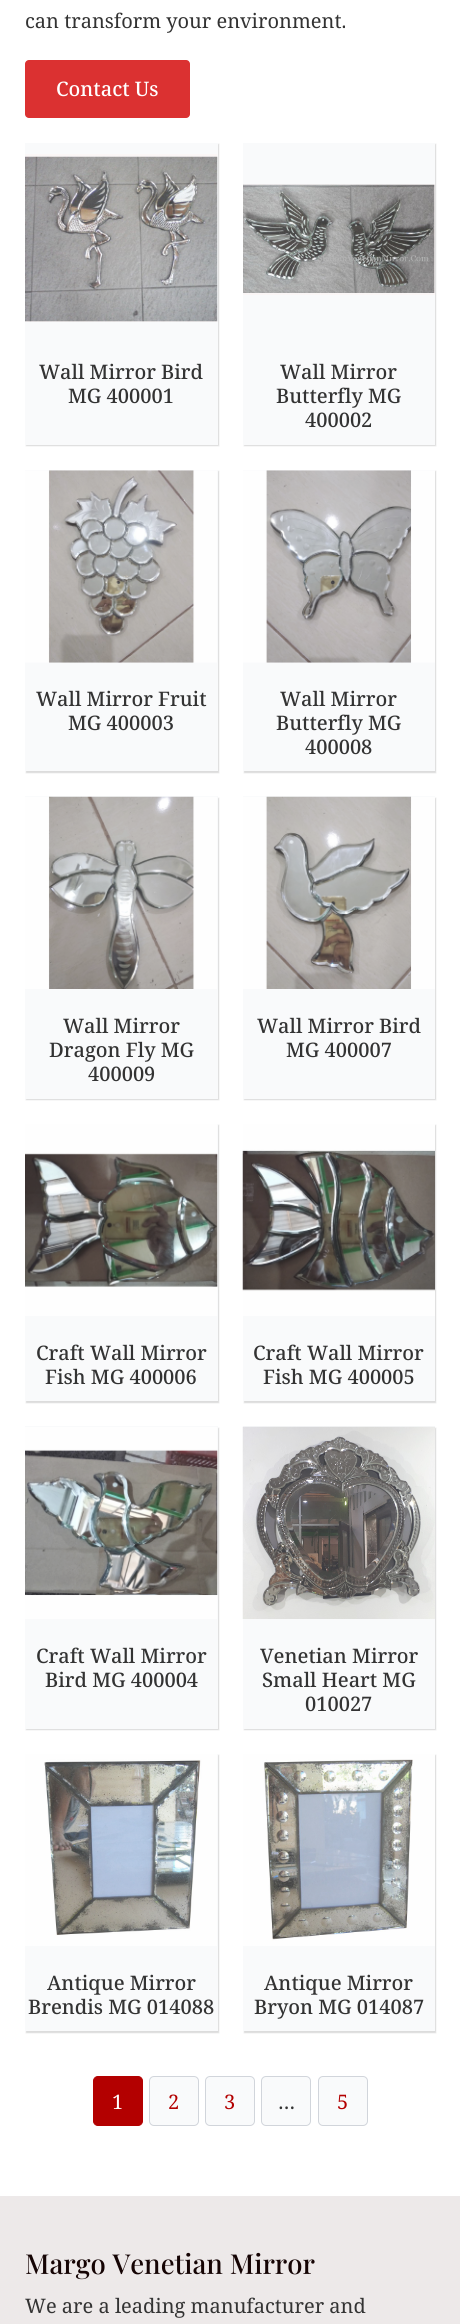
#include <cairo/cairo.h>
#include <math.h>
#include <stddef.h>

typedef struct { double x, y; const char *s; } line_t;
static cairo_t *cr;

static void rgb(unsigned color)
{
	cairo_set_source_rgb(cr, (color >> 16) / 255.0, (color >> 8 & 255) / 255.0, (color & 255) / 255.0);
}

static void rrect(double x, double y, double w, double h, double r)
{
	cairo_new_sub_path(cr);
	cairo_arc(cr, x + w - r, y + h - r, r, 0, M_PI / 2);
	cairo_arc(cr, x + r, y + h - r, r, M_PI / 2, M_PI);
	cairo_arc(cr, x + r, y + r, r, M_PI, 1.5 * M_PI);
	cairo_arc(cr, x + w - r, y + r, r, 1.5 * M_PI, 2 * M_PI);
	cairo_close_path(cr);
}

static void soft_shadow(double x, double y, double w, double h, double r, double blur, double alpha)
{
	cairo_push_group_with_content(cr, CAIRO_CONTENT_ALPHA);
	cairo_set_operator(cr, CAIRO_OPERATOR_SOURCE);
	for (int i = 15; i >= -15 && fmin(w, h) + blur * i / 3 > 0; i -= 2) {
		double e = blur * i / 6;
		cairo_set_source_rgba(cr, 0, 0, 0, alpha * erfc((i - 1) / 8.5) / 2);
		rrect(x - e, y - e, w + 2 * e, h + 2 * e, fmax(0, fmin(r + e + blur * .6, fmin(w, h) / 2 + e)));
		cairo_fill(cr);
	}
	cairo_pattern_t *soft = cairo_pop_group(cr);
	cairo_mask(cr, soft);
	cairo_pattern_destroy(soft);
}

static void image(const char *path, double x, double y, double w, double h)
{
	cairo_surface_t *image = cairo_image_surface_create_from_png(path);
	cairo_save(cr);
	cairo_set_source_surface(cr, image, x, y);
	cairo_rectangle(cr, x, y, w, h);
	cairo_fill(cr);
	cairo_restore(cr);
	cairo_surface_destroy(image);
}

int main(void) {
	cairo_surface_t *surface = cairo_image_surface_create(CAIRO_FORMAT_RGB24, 460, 2324);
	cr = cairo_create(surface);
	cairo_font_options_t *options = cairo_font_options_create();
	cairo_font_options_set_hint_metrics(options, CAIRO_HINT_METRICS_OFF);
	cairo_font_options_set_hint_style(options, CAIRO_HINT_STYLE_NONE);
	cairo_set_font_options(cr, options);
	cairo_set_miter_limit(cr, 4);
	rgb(0xffffff);
	cairo_paint(cr);
	rgb(0xdb3131);
	rrect(25, 60, 165, 58, 4);
	cairo_fill(cr);
	rgb(0x000000);
	soft_shadow(26, 144, 193, 302, 0, 0.5, 0.14);
	rgb(0xf9fafb);
	cairo_rectangle(cr, 25, 143, 193, 302);
	cairo_fill(cr);
	image("img/1.png", 25, 154, 193, 168);
	rgb(0x000000);
	soft_shadow(244, 144, 192, 302, 0, 0.5, 0.14);
	rgb(0xf9fafb);
	cairo_rectangle(cr, 243, 143, 192, 302);
	cairo_fill(cr);
	image("img/2.png", 243, 184, 192, 111);
	rgb(0x000000);
	soft_shadow(26, 471, 193, 302, 0, 0.5, 0.14);
	rgb(0xf9fafb);
	cairo_rectangle(cr, 25, 470, 193, 301);
	cairo_fill(cr);
	image("img/3.png", 25, 470, 192, 193);
	rgb(0x000000);
	soft_shadow(244, 471, 192, 302, 0, 0.5, 0.14);
	rgb(0xf9fafb);
	cairo_rectangle(cr, 243, 470, 192, 301);
	cairo_fill(cr);
	image("img/4.png", 243, 470, 192, 193);
	rgb(0x000000);
	soft_shadow(26, 798, 193, 302, 0, 0.5, 0.14);
	rgb(0xf9fafb);
	cairo_rectangle(cr, 25, 796, 193, 303);
	cairo_fill(cr);
	image("img/5.png", 25, 796, 192, 193);
	rgb(0x000000);
	soft_shadow(244, 798, 192, 302, 0, 0.5, 0.14);
	rgb(0xf9fafb);
	cairo_rectangle(cr, 243, 796, 192, 303);
	cairo_fill(cr);
	image("img/6.png", 243, 796, 192, 193);
	rgb(0x000000);
	soft_shadow(26, 1125, 193, 278, 0, 0.5, 0.14);
	rgb(0xf9fafb);
	cairo_rectangle(cr, 25, 1124, 193, 277);
	cairo_fill(cr);
	image("img/7.png", 25, 1124, 193, 192);
	rgb(0x000000);
	soft_shadow(244, 1125, 192, 278, 0, 0.5, 0.14);
	rgb(0xf9fafb);
	cairo_rectangle(cr, 243, 1124, 192, 277);
	cairo_fill(cr);
	image("img/8.png", 242, 1124, 193, 192);
	rgb(0x000000);
	soft_shadow(26, 1428, 193, 302, 0, 0.5, 0.14);
	rgb(0xf9fafb);
	cairo_rectangle(cr, 25, 1426, 193, 303);
	cairo_fill(cr);
	image("img/9.png", 25, 1427, 193, 192);
	rgb(0x000000);
	soft_shadow(244, 1428, 192, 302, 0, 0.5, 0.14);
	rgb(0xf9fafb);
	cairo_rectangle(cr, 243, 1426, 192, 303);
	cairo_fill(cr);
	image("img/10.png", 242, 1426, 193, 193);
	rgb(0x000000);
	soft_shadow(26, 1755, 193, 278, 0, 0.5, 0.14);
	rgb(0xf9fafb);
	cairo_rectangle(cr, 25, 1754, 193, 277);
	cairo_fill(cr);
	image("img/11.png", 25, 1754, 192, 192);
	rgb(0x000000);
	soft_shadow(244, 1755, 192, 278, 0, 0.5, 0.14);
	rgb(0xf9fafb);
	cairo_rectangle(cr, 243, 1754, 192, 277);
	cairo_fill(cr);
	image("img/12.png", 243, 1754, 192, 192);
	rgb(0xb30000);
	rrect(93.5, 2076.5, 49, 49, 4.5);
	cairo_fill_preserve(cr);
	cairo_set_line_width(cr, 1);
	cairo_stroke(cr);
	rgb(0xf9fafb);
	rrect(149.5, 2076.5, 49, 49, 4.5);
	cairo_fill_preserve(cr);
	rgb(0xd1d5db);
	cairo_stroke(cr);
	rgb(0xf9fafb);
	rrect(205.5, 2076.5, 49, 49, 4.5);
	cairo_fill_preserve(cr);
	rgb(0xd1d5db);
	cairo_stroke(cr);
	rgb(0xf9fafb);
	rrect(261.5, 2076.5, 49, 49, 4.5);
	cairo_fill_preserve(cr);
	rgb(0xd1d5db);
	cairo_stroke(cr);
	rgb(0xf9fafb);
	rrect(318.5, 2076.5, 49, 49, 4.5);
	cairo_fill_preserve(cr);
	rgb(0xd1d5db);
	cairo_stroke(cr);
	rgb(0xede9e9);
	cairo_rectangle(cr, 0, 2196, 460, 128);
	cairo_fill(cr);
	cairo_select_font_face(cr, "Noto Serif", CAIRO_FONT_SLANT_NORMAL, CAIRO_FONT_WEIGHT_NORMAL);
	cairo_set_font_size(cr, 20);
	rgb(0x333333);
	cairo_move_to(cr, 25, 28);
	cairo_show_text(cr, "can transform your environment.");
	cairo_select_font_face(cr, "Noto Serif Medium", CAIRO_FONT_SLANT_NORMAL, CAIRO_FONT_WEIGHT_NORMAL);
	rgb(0xffffff);
	cairo_move_to(cr, 56, 96);
	cairo_show_text(cr, "Contact Us");
	rgb(0x333333);
	{
		static const line_t items[] = {
			{39, 379, "Wall Mirror Bird"},
			{68, 403, "MG 400001"},
			{280, 379, "Wall Mirror"},
			{276, 403, "Butterfly MG"},
			{305, 427, "400002"},
			{36, 706, "Wall Mirror Fruit"},
			{68, 730, "MG 400003"},
			{280, 706, "Wall Mirror"},
			{276, 730, "Butterfly MG"},
			{305, 754, "400008"},
			{63, 1033, "Wall Mirror"},
			{49, 1057, "Dragon Fly MG"},
			{88, 1081, "400009"},
			{257, 1033, "Wall Mirror Bird"},
			{286, 1057, "MG 400007"},
			{36, 1360, "Craft Wall Mirror"},
			{45, 1384, "Fish MG 400006"},
			{253, 1360, "Craft Wall Mirror"},
			{263, 1384, "Fish MG 400005"},
			{36, 1663, "Craft Wall Mirror"},
			{45, 1687, "Bird MG 400004"},
			{260, 1663, "Venetian Mirror"},
			{262, 1687, "Small Heart MG"},
			{305, 1711, "010027"},
			{47, 1990, "Antique Mirror"},
			{28, 2014, "Brendis MG 014088"},
			{264, 1990, "Antique Mirror"},
			{254, 2014, "Bryon MG 014087"},
		};
		for (size_t i = 0; i < sizeof items / sizeof *items; i++) {
			cairo_move_to(cr, items[i].x, items[i].y);
			cairo_show_text(cr, items[i].s);
		}
	}
	cairo_select_font_face(cr, "Noto Serif", CAIRO_FONT_SLANT_NORMAL, CAIRO_FONT_WEIGHT_NORMAL);
	rgb(0xffffff);
	cairo_move_to(cr, 112, 2109);
	cairo_show_text(cr, "1");
	rgb(0xb30000);
	cairo_move_to(cr, 168, 2109);
	cairo_show_text(cr, "2");
	cairo_move_to(cr, 224, 2109);
	cairo_show_text(cr, "3");
	rgb(0x333333);
	cairo_move_to(cr, 278, 2109);
	cairo_show_text(cr, "…");
	rgb(0xb30000);
	cairo_move_to(cr, 337, 2109);
	cairo_show_text(cr, "5");
	cairo_select_font_face(cr, "Playfair Display Medium", CAIRO_FONT_SLANT_NORMAL, CAIRO_FONT_WEIGHT_NORMAL);
	cairo_set_font_size(cr, 27.5);
	rgb(0x150404);
	cairo_move_to(cr, 25, 2274);
	cairo_show_text(cr, "Margo Venetian Mirror");
	cairo_select_font_face(cr, "Noto Serif", CAIRO_FONT_SLANT_NORMAL, CAIRO_FONT_WEIGHT_NORMAL);
	cairo_set_font_size(cr, 20);
	rgb(0x333333);
	cairo_move_to(cr, 25, 2313);
	cairo_show_text(cr, "We are a leading manufacturer and");
	cairo_surface_write_to_png(surface, "page.png");
	cairo_font_options_destroy(options);
	cairo_destroy(cr);
	cairo_surface_destroy(surface);
	return 0;
}
